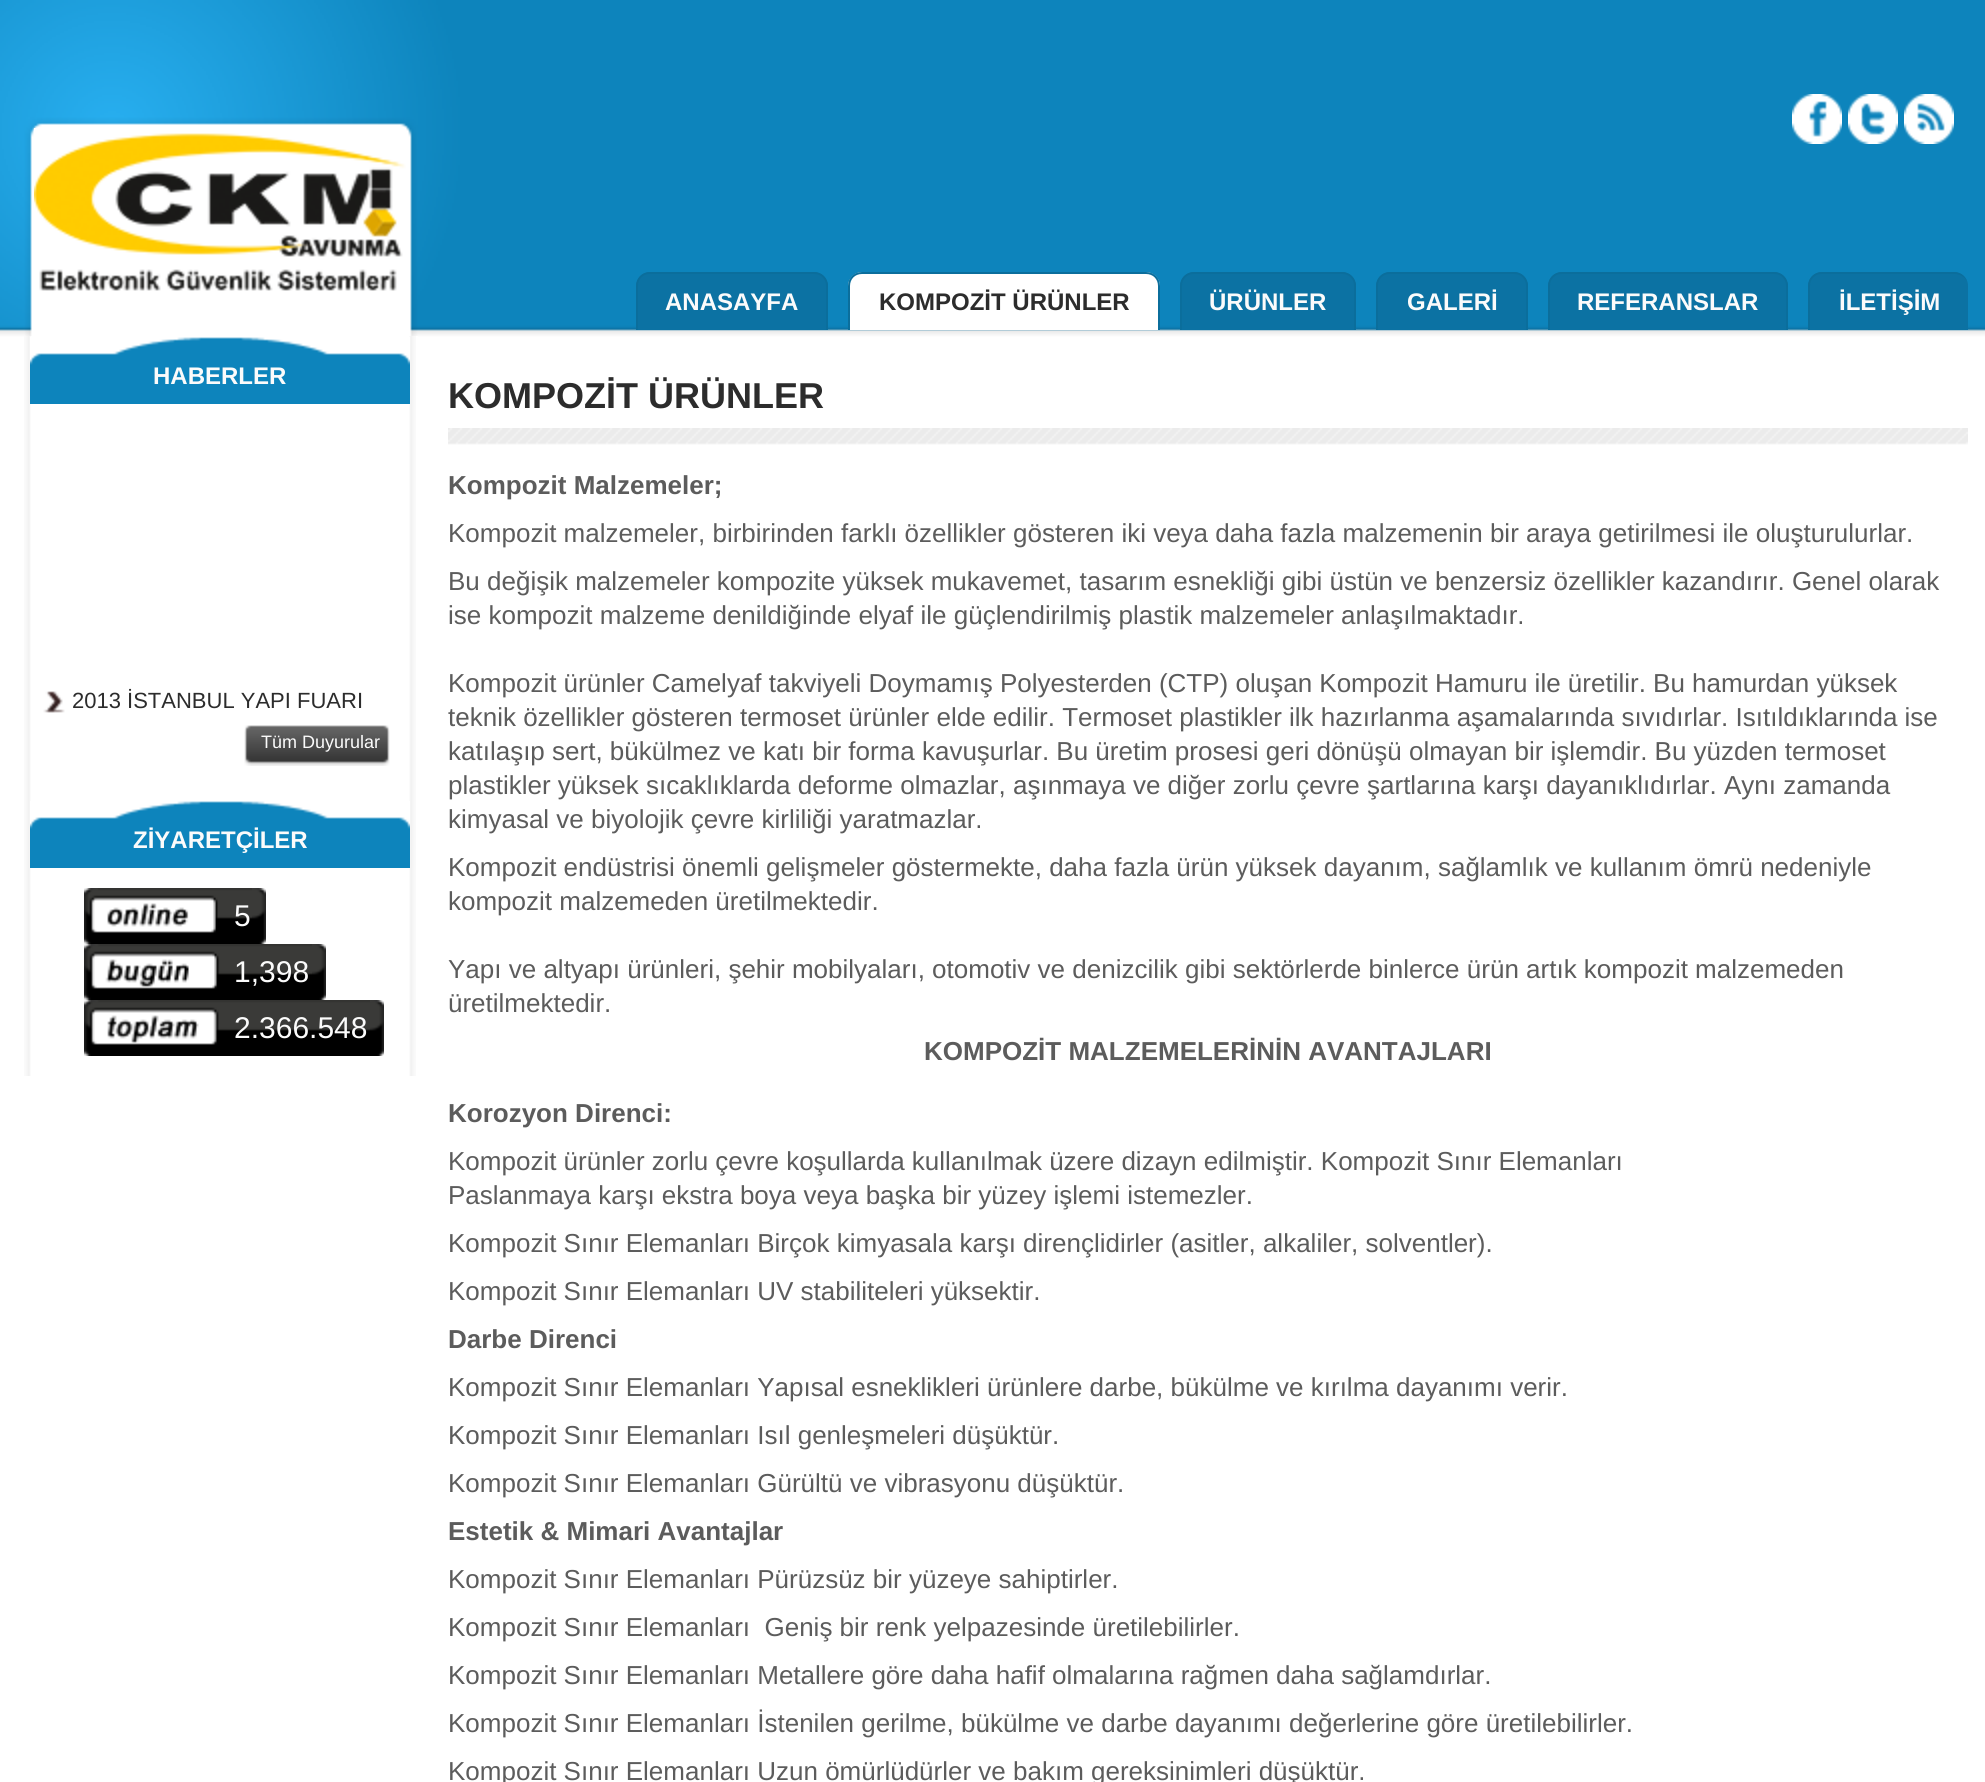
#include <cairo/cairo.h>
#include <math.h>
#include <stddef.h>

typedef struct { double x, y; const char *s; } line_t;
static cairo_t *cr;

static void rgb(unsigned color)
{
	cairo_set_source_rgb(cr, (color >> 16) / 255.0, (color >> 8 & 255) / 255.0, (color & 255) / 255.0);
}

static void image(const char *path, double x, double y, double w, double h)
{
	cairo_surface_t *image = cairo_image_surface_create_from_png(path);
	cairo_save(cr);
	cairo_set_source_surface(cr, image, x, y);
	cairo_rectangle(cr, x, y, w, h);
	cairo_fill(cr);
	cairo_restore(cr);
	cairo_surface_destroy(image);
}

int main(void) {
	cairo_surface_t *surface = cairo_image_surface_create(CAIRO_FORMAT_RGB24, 1985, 1782);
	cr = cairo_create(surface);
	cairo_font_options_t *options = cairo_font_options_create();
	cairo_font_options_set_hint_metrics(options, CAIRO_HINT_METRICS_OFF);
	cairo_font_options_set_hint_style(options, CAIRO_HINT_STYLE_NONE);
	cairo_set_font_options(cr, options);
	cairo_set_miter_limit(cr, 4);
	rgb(0xffffff);
	cairo_paint(cr);
	image("img/1.png", 0, 0, 1985, 346);
	image("img/2.png", 34, 128, 372, 163);
	image("img/3.png", 1792, 94, 50, 50);
	image("img/4.png", 1848, 94, 50, 50);
	image("img/5.png", 1904, 94, 50, 50);
	rgb(0x0c72a3);
	cairo_new_path(cr);
	cairo_move_to(cr, 650, 272);
	cairo_line_to(cr, 814, 272);
	cairo_curve_to(cr, 821.5, 272, 828, 278.5, 828, 286);
	cairo_line_to(cr, 828, 330);
	cairo_line_to(cr, 636, 330);
	cairo_line_to(cr, 636, 286);
	cairo_curve_to(cr, 636, 278.5, 642.5, 272, 650, 272);
	cairo_close_path(cr);
	cairo_fill(cr);
	rgb(0x0b6e9c);
	cairo_set_fill_rule(cr, CAIRO_FILL_RULE_EVEN_ODD);
	cairo_new_path(cr);
	cairo_move_to(cr, 650, 272);
	cairo_line_to(cr, 814, 272);
	cairo_curve_to(cr, 822, 272, 828, 278, 828, 286);
	cairo_line_to(cr, 828, 330);
	cairo_line_to(cr, 636, 330);
	cairo_line_to(cr, 636, 286);
	cairo_curve_to(cr, 636, 278, 642, 272, 650, 272);
	cairo_close_path(cr);
	cairo_move_to(cr, 650, 274);
	cairo_line_to(cr, 814, 274);
	cairo_curve_to(cr, 821, 274, 826, 279, 826, 286);
	cairo_line_to(cr, 826, 330);
	cairo_line_to(cr, 638, 330);
	cairo_line_to(cr, 638, 286);
	cairo_curve_to(cr, 638, 279, 643, 274, 650, 274);
	cairo_close_path(cr);
	cairo_fill(cr);
	rgb(0xffffff);
	cairo_new_path(cr);
	cairo_move_to(cr, 862, 272);
	cairo_line_to(cr, 1146, 272);
	cairo_curve_to(cr, 1153.5, 272, 1160, 278.5, 1160, 286);
	cairo_line_to(cr, 1160, 330);
	cairo_line_to(cr, 848, 330);
	cairo_line_to(cr, 848, 286);
	cairo_curve_to(cr, 848, 278.5, 854.5, 272, 862, 272);
	cairo_close_path(cr);
	cairo_fill(cr);
	rgb(0x0b6e9c);
	cairo_new_path(cr);
	cairo_move_to(cr, 862, 272);
	cairo_line_to(cr, 1146, 272);
	cairo_curve_to(cr, 1154, 272, 1160, 278, 1160, 286);
	cairo_line_to(cr, 1160, 330);
	cairo_line_to(cr, 848, 330);
	cairo_line_to(cr, 848, 286);
	cairo_curve_to(cr, 848, 278, 854, 272, 862, 272);
	cairo_close_path(cr);
	cairo_move_to(cr, 862, 274);
	cairo_line_to(cr, 1146, 274);
	cairo_curve_to(cr, 1153, 274, 1158, 279, 1158, 286);
	cairo_line_to(cr, 1158, 330);
	cairo_line_to(cr, 850, 330);
	cairo_line_to(cr, 850, 286);
	cairo_curve_to(cr, 850, 279, 855, 274, 862, 274);
	cairo_close_path(cr);
	cairo_fill(cr);
	rgb(0x0c72a3);
	cairo_new_path(cr);
	cairo_move_to(cr, 1194, 272);
	cairo_line_to(cr, 1342, 272);
	cairo_curve_to(cr, 1349.5, 272, 1356, 278.5, 1356, 286);
	cairo_line_to(cr, 1356, 330);
	cairo_line_to(cr, 1180, 330);
	cairo_line_to(cr, 1180, 286);
	cairo_curve_to(cr, 1180, 278.5, 1186.5, 272, 1194, 272);
	cairo_close_path(cr);
	cairo_fill(cr);
	rgb(0x0b6e9c);
	cairo_new_path(cr);
	cairo_move_to(cr, 1194, 272);
	cairo_line_to(cr, 1342, 272);
	cairo_curve_to(cr, 1350, 272, 1356, 278, 1356, 286);
	cairo_line_to(cr, 1356, 330);
	cairo_line_to(cr, 1180, 330);
	cairo_line_to(cr, 1180, 286);
	cairo_curve_to(cr, 1180, 278, 1186, 272, 1194, 272);
	cairo_close_path(cr);
	cairo_move_to(cr, 1194, 274);
	cairo_line_to(cr, 1342, 274);
	cairo_curve_to(cr, 1349, 274, 1354, 279, 1354, 286);
	cairo_line_to(cr, 1354, 330);
	cairo_line_to(cr, 1182, 330);
	cairo_line_to(cr, 1182, 286);
	cairo_curve_to(cr, 1182, 279, 1187, 274, 1194, 274);
	cairo_close_path(cr);
	cairo_fill(cr);
	rgb(0x0c72a3);
	cairo_new_path(cr);
	cairo_move_to(cr, 1390, 272);
	cairo_line_to(cr, 1514, 272);
	cairo_curve_to(cr, 1521.5, 272, 1528, 278.5, 1528, 286);
	cairo_line_to(cr, 1528, 330);
	cairo_line_to(cr, 1376, 330);
	cairo_line_to(cr, 1376, 286);
	cairo_curve_to(cr, 1376, 278.5, 1382.5, 272, 1390, 272);
	cairo_close_path(cr);
	cairo_fill(cr);
	rgb(0x0b6e9c);
	cairo_new_path(cr);
	cairo_move_to(cr, 1390, 272);
	cairo_line_to(cr, 1514, 272);
	cairo_curve_to(cr, 1522, 272, 1528, 278, 1528, 286);
	cairo_line_to(cr, 1528, 330);
	cairo_line_to(cr, 1376, 330);
	cairo_line_to(cr, 1376, 286);
	cairo_curve_to(cr, 1376, 278, 1382, 272, 1390, 272);
	cairo_close_path(cr);
	cairo_move_to(cr, 1390, 274);
	cairo_line_to(cr, 1514, 274);
	cairo_curve_to(cr, 1521, 274, 1526, 279, 1526, 286);
	cairo_line_to(cr, 1526, 330);
	cairo_line_to(cr, 1378, 330);
	cairo_line_to(cr, 1378, 286);
	cairo_curve_to(cr, 1378, 279, 1383, 274, 1390, 274);
	cairo_close_path(cr);
	cairo_fill(cr);
	rgb(0x0c72a3);
	cairo_new_path(cr);
	cairo_move_to(cr, 1562, 272);
	cairo_line_to(cr, 1774, 272);
	cairo_curve_to(cr, 1781.5, 272, 1788, 278.5, 1788, 286);
	cairo_line_to(cr, 1788, 330);
	cairo_line_to(cr, 1548, 330);
	cairo_line_to(cr, 1548, 286);
	cairo_curve_to(cr, 1548, 278.5, 1554.5, 272, 1562, 272);
	cairo_close_path(cr);
	cairo_fill(cr);
	rgb(0x0b6e9c);
	cairo_new_path(cr);
	cairo_move_to(cr, 1562, 272);
	cairo_line_to(cr, 1774, 272);
	cairo_curve_to(cr, 1782, 272, 1788, 278, 1788, 286);
	cairo_line_to(cr, 1788, 330);
	cairo_line_to(cr, 1548, 330);
	cairo_line_to(cr, 1548, 286);
	cairo_curve_to(cr, 1548, 278, 1554, 272, 1562, 272);
	cairo_close_path(cr);
	cairo_move_to(cr, 1562, 274);
	cairo_line_to(cr, 1774, 274);
	cairo_curve_to(cr, 1781, 274, 1786, 279, 1786, 286);
	cairo_line_to(cr, 1786, 330);
	cairo_line_to(cr, 1550, 330);
	cairo_line_to(cr, 1550, 286);
	cairo_curve_to(cr, 1550, 279, 1555, 274, 1562, 274);
	cairo_close_path(cr);
	cairo_fill(cr);
	rgb(0x0c72a3);
	cairo_new_path(cr);
	cairo_move_to(cr, 1822, 272);
	cairo_line_to(cr, 1954, 272);
	cairo_curve_to(cr, 1961.5, 272, 1968, 278.5, 1968, 286);
	cairo_line_to(cr, 1968, 330);
	cairo_line_to(cr, 1808, 330);
	cairo_line_to(cr, 1808, 286);
	cairo_curve_to(cr, 1808, 278.5, 1814.5, 272, 1822, 272);
	cairo_close_path(cr);
	cairo_fill(cr);
	rgb(0x0b6e9c);
	cairo_new_path(cr);
	cairo_move_to(cr, 1822, 272);
	cairo_line_to(cr, 1954, 272);
	cairo_curve_to(cr, 1962, 272, 1968, 278, 1968, 286);
	cairo_line_to(cr, 1968, 330);
	cairo_line_to(cr, 1808, 330);
	cairo_line_to(cr, 1808, 286);
	cairo_curve_to(cr, 1808, 278, 1814, 272, 1822, 272);
	cairo_close_path(cr);
	cairo_move_to(cr, 1822, 274);
	cairo_line_to(cr, 1954, 274);
	cairo_curve_to(cr, 1962, 274, 1968, 279, 1968, 286);
	cairo_line_to(cr, 1968, 330);
	cairo_line_to(cr, 1810, 330);
	cairo_line_to(cr, 1810, 286);
	cairo_curve_to(cr, 1810, 279, 1815, 274, 1822, 274);
	cairo_close_path(cr);
	cairo_fill(cr);
	rgb(0xffffff);
	cairo_rectangle(cr, 24, 336, 394, 10);
	cairo_fill(cr);
	image("img/6.png", 24, 336, 392, 740);
	image("img/7.png", 30, 337, 380, 67);
	image("img/8.png", 43, 691, 22, 22);
	image("img/9.png", 244, 725, 146, 41);
	image("img/7.png", 30, 801, 380, 67);
	image("img/10.png", 84, 888, 168, 56);
	image("img/11.png", 252, 888, 14, 56);
	image("img/12.png", 84, 944, 228, 56);
	image("img/11.png", 312, 944, 14, 56);
	image("img/13.png", 84, 1000, 286, 56);
	image("img/11.png", 370, 1000, 14, 56);
	image("img/14.png", 448, 428, 1520, 17);
	cairo_select_font_face(cr, "Liberation Sans", CAIRO_FONT_SLANT_NORMAL, CAIRO_FONT_WEIGHT_BOLD);
	cairo_set_font_size(cr, 24);
	rgb(0xfbfbfb);
	cairo_move_to(cr, 665, 310);
	cairo_show_text(cr, "ANASAYFA");
	rgb(0x2c2c2c);
	cairo_move_to(cr, 879, 310);
	cairo_show_text(cr, "KOMPOZİT ÜRÜNLER");
	rgb(0xfbfbfb);
	{
		static const line_t items[] = {
			{1209, 310, "ÜRÜNLER"},
			{1407, 310, "GALERİ"},
			{1577, 310, "REFERANSLAR"},
			{1839, 310, "İLETİŞİM"},
			{153, 384, "HABERLER"},
		};
		for (size_t i = 0; i < sizeof items / sizeof *items; i++) {
			cairo_move_to(cr, items[i].x, items[i].y);
			cairo_show_text(cr, items[i].s);
		}
	}
	cairo_select_font_face(cr, "Liberation Sans", CAIRO_FONT_SLANT_NORMAL, CAIRO_FONT_WEIGHT_NORMAL);
	cairo_set_font_size(cr, 22);
	rgb(0x2c2c2c);
	cairo_move_to(cr, 72, 708);
	cairo_show_text(cr, "2013 İSTANBUL YAPI FUARI");
	cairo_set_font_size(cr, 18);
	rgb(0xfbfbfb);
	cairo_move_to(cr, 261, 748);
	cairo_show_text(cr, "Tüm Duyurular");
	cairo_select_font_face(cr, "Liberation Sans", CAIRO_FONT_SLANT_NORMAL, CAIRO_FONT_WEIGHT_BOLD);
	cairo_set_font_size(cr, 24);
	cairo_move_to(cr, 133, 848);
	cairo_show_text(cr, "ZİYARETÇİLER");
	cairo_select_font_face(cr, "Liberation Sans", CAIRO_FONT_SLANT_NORMAL, CAIRO_FONT_WEIGHT_NORMAL);
	cairo_set_font_size(cr, 30);
	{
		static const line_t items[] = {
			{234, 926, "5"},
			{234, 982, "1,398"},
			{234, 1038, "2.366.548"},
		};
		for (size_t i = 0; i < sizeof items / sizeof *items; i++) {
			cairo_move_to(cr, items[i].x, items[i].y);
			cairo_show_text(cr, items[i].s);
		}
	}
	cairo_select_font_face(cr, "Liberation Sans", CAIRO_FONT_SLANT_NORMAL, CAIRO_FONT_WEIGHT_BOLD);
	cairo_set_font_size(cr, 36);
	rgb(0x2c2c2c);
	cairo_move_to(cr, 448, 408);
	cairo_show_text(cr, "KOMPOZİT ÜRÜNLER");
	cairo_set_font_size(cr, 26);
	rgb(0x5c5c5c);
	cairo_move_to(cr, 448, 494);
	cairo_show_text(cr, "Kompozit Malzemeler;");
	cairo_select_font_face(cr, "Liberation Sans", CAIRO_FONT_SLANT_NORMAL, CAIRO_FONT_WEIGHT_NORMAL);
	{
		static const line_t items[] = {
			{448, 542, "Kompozit malzemeler, birbirinden farklı özellikler gösteren iki veya daha fazla malzemenin bir araya getirilmesi ile oluşturulurlar."},
			{448, 590, "Bu değişik malzemeler kompozite yüksek mukavemet, tasarım esnekliği gibi üstün ve benzersiz özellikler kazandırır. Genel olarak"},
			{448, 624, "ise kompozit malzeme denildiğinde elyaf ile güçlendirilmiş plastik malzemeler anlaşılmaktadır."},
			{448, 692, "Kompozit ürünler Camelyaf takviyeli Doymamış Polyesterden (CTP) oluşan Kompozit Hamuru ile üretilir. Bu hamurdan yüksek"},
			{448, 726, "teknik özellikler gösteren termoset ürünler elde edilir. Termoset plastikler ilk hazırlanma aşamalarında sıvıdırlar. Isıtıldıklarında ise"},
			{448, 760, "katılaşıp sert, bükülmez ve katı bir forma kavuşurlar. Bu üretim prosesi geri dönüşü olmayan bir işlemdir. Bu yüzden termoset"},
			{448, 794, "plastikler yüksek sıcaklıklarda deforme olmazlar, aşınmaya ve diğer zorlu çevre şartlarına karşı dayanıklıdırlar. Aynı zamanda"},
			{448, 828, "kimyasal ve biyolojik çevre kirliliği yaratmazlar."},
			{448, 876, "Kompozit endüstrisi önemli gelişmeler göstermekte, daha fazla ürün yüksek dayanım, sağlamlık ve kullanım ömrü nedeniyle"},
			{448, 910, "kompozit malzemeden üretilmektedir."},
			{448, 978, "Yapı ve altyapı ürünleri, şehir mobilyaları, otomotiv ve denizcilik gibi sektörlerde binlerce ürün artık kompozit malzemeden"},
			{448, 1012, "üretilmektedir."},
		};
		for (size_t i = 0; i < sizeof items / sizeof *items; i++) {
			cairo_move_to(cr, items[i].x, items[i].y);
			cairo_show_text(cr, items[i].s);
		}
	}
	cairo_select_font_face(cr, "Liberation Sans", CAIRO_FONT_SLANT_NORMAL, CAIRO_FONT_WEIGHT_BOLD);
	cairo_move_to(cr, 924, 1060);
	cairo_show_text(cr, "KOMPOZİT MALZEMELERİNİN AVANTAJLARI");
	cairo_move_to(cr, 448, 1122);
	cairo_show_text(cr, "Korozyon Direnci:");
	cairo_select_font_face(cr, "Liberation Sans", CAIRO_FONT_SLANT_NORMAL, CAIRO_FONT_WEIGHT_NORMAL);
	{
		static const line_t items[] = {
			{448, 1170, "Kompozit ürünler zorlu çevre koşullarda kullanılmak üzere dizayn edilmiştir. Kompozit Sınır Elemanları"},
			{448, 1204, "Paslanmaya karşı ekstra boya veya başka bir yüzey işlemi istemezler."},
			{448, 1252, "Kompozit Sınır Elemanları Birçok kimyasala karşı dirençlidirler (asitler, alkaliler, solventler)."},
			{448, 1300, "Kompozit Sınır Elemanları UV stabiliteleri yüksektir."},
		};
		for (size_t i = 0; i < sizeof items / sizeof *items; i++) {
			cairo_move_to(cr, items[i].x, items[i].y);
			cairo_show_text(cr, items[i].s);
		}
	}
	cairo_select_font_face(cr, "Liberation Sans", CAIRO_FONT_SLANT_NORMAL, CAIRO_FONT_WEIGHT_BOLD);
	cairo_move_to(cr, 448, 1348);
	cairo_show_text(cr, "Darbe Direnci");
	cairo_select_font_face(cr, "Liberation Sans", CAIRO_FONT_SLANT_NORMAL, CAIRO_FONT_WEIGHT_NORMAL);
	{
		static const line_t items[] = {
			{448, 1396, "Kompozit Sınır Elemanları Yapısal esneklikleri ürünlere darbe, bükülme ve kırılma dayanımı verir."},
			{448, 1444, "Kompozit Sınır Elemanları Isıl genleşmeleri düşüktür."},
			{448, 1492, "Kompozit Sınır Elemanları Gürültü ve vibrasyonu düşüktür."},
		};
		for (size_t i = 0; i < sizeof items / sizeof *items; i++) {
			cairo_move_to(cr, items[i].x, items[i].y);
			cairo_show_text(cr, items[i].s);
		}
	}
	cairo_select_font_face(cr, "Liberation Sans", CAIRO_FONT_SLANT_NORMAL, CAIRO_FONT_WEIGHT_BOLD);
	cairo_move_to(cr, 448, 1540);
	cairo_show_text(cr, "Estetik & Mimari Avantajlar");
	cairo_select_font_face(cr, "Liberation Sans", CAIRO_FONT_SLANT_NORMAL, CAIRO_FONT_WEIGHT_NORMAL);
	{
		static const line_t items[] = {
			{448, 1588, "Kompozit Sınır Elemanları Pürüzsüz bir yüzeye sahiptirler."},
			{448, 1636, "Kompozit Sınır Elemanları  Geniş bir renk yelpazesinde üretilebilirler."},
			{448, 1684, "Kompozit Sınır Elemanları Metallere göre daha hafif olmalarına rağmen daha sağlamdırlar."},
			{448, 1732, "Kompozit Sınır Elemanları İstenilen gerilme, bükülme ve darbe dayanımı değerlerine göre üretilebilirler."},
			{448, 1780, "Kompozit Sınır Elemanları Uzun ömürlüdürler ve bakım gereksinimleri düşüktür."},
		};
		for (size_t i = 0; i < sizeof items / sizeof *items; i++) {
			cairo_move_to(cr, items[i].x, items[i].y);
			cairo_show_text(cr, items[i].s);
		}
	}
	cairo_surface_write_to_png(surface, "page.png");
	cairo_font_options_destroy(options);
	cairo_destroy(cr);
	cairo_surface_destroy(surface);
	return 0;
}
